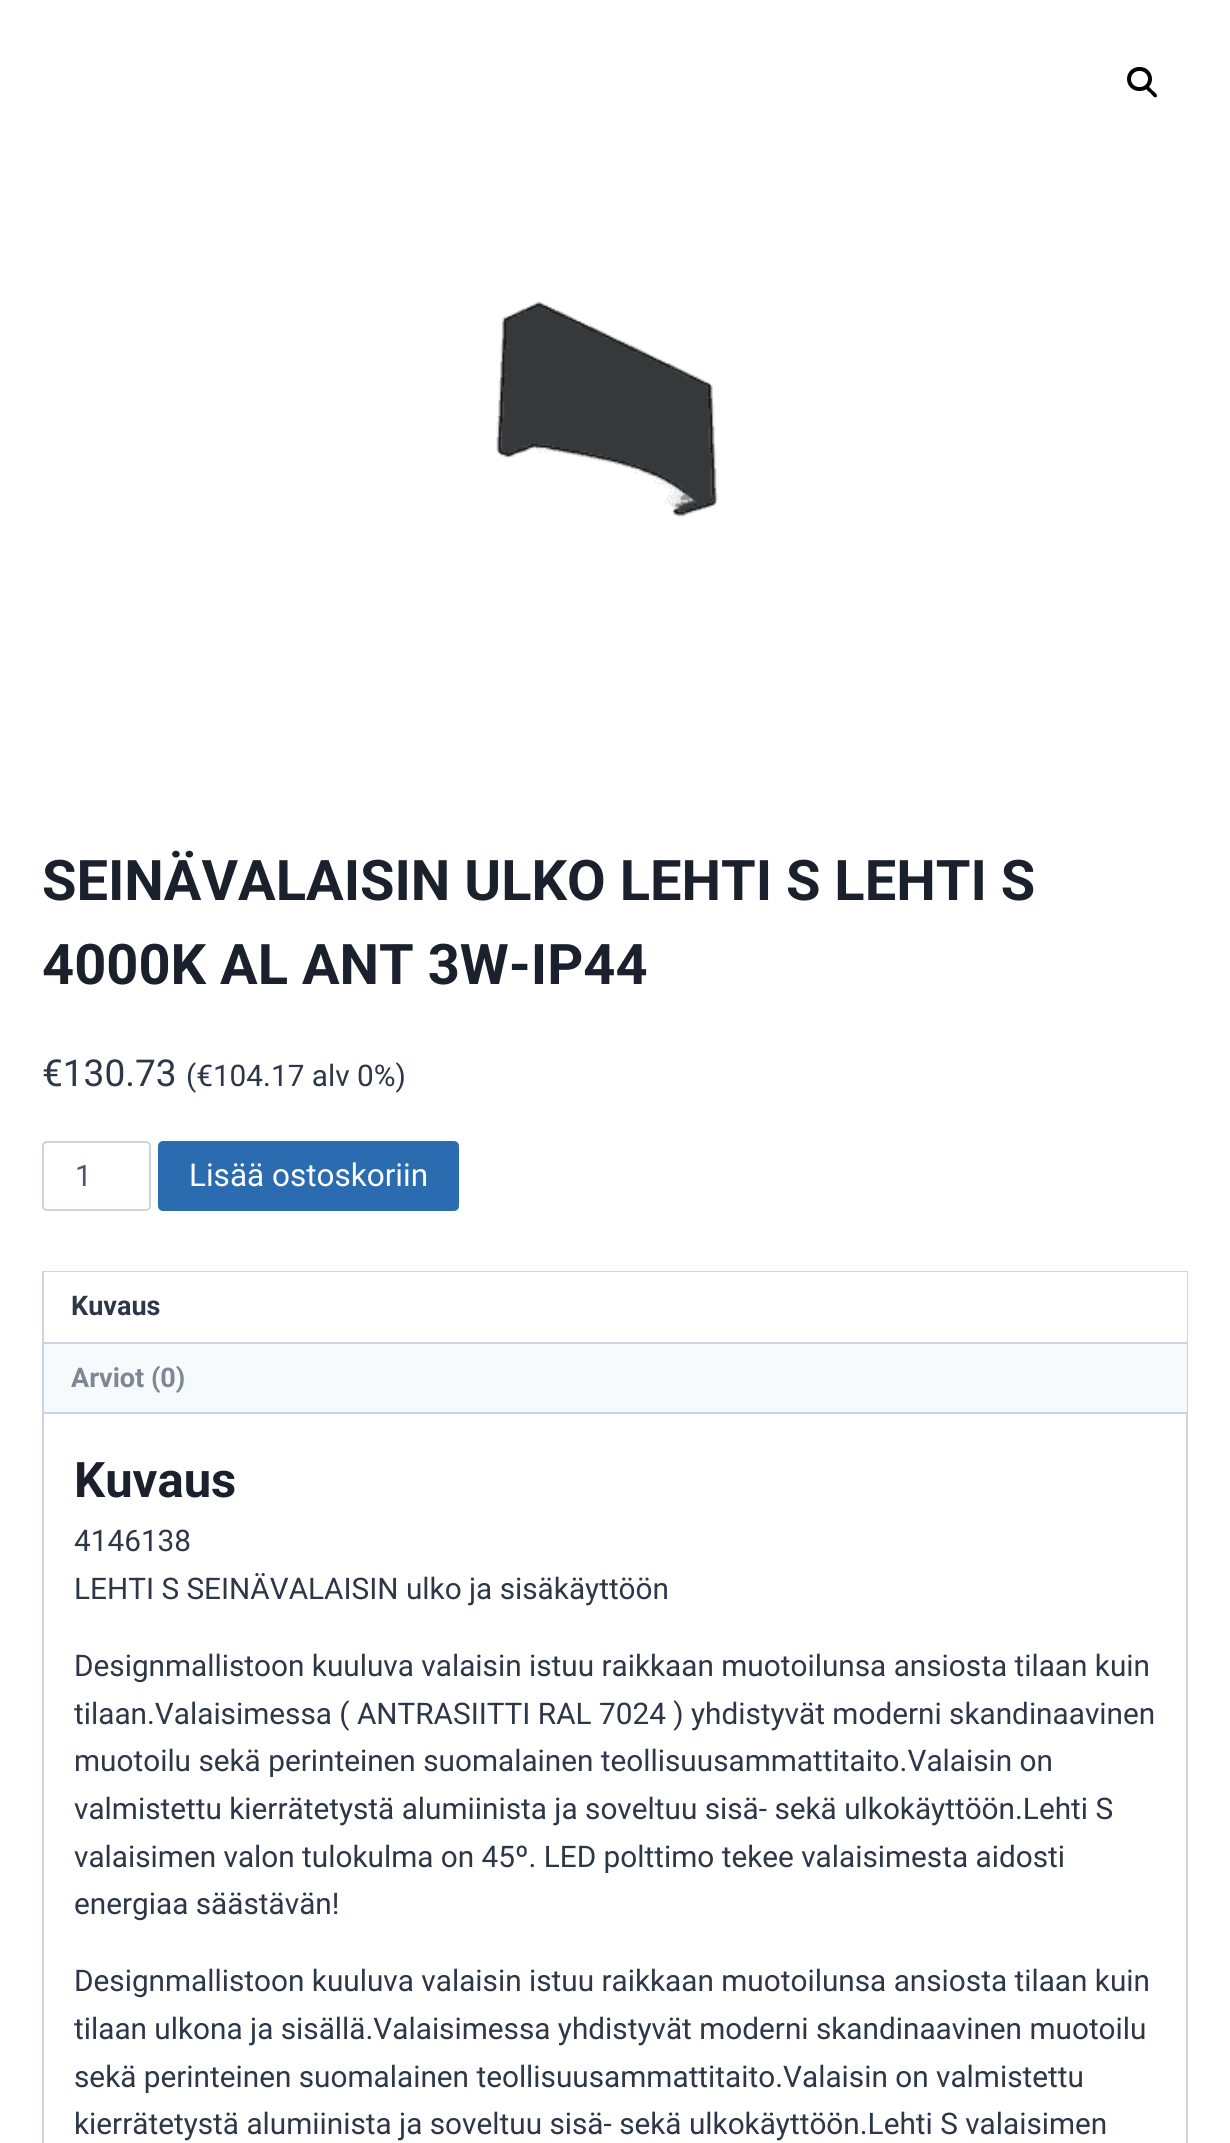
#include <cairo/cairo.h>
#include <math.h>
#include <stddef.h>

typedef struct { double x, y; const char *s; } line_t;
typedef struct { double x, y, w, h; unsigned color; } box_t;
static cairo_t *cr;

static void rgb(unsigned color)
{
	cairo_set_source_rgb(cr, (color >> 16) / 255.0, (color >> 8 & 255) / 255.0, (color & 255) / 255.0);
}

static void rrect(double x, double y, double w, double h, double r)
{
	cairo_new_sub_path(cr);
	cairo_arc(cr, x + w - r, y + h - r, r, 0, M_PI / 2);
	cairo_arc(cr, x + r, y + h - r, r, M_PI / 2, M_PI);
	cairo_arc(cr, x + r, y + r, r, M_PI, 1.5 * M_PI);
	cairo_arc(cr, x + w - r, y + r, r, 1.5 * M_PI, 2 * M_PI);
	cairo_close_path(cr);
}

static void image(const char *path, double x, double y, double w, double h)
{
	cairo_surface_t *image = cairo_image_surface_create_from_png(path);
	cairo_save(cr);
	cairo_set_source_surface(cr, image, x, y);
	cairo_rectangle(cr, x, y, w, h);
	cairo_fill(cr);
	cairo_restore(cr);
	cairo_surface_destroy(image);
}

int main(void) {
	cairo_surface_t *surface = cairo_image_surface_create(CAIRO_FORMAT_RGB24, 1230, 2143);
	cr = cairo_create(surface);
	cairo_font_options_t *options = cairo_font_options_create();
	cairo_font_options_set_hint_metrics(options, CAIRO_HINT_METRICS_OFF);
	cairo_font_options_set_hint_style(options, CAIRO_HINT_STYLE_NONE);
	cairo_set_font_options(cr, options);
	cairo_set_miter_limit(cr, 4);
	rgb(0xffffff);
	cairo_paint(cr);
	rrect(1129, 69, 21, 20, 10);
	rgb(0x000000);
	cairo_set_line_width(cr, 4);
	cairo_stroke(cr);
	cairo_new_path(cr);
	cairo_move_to(cr, 1146.5, 87);
	cairo_curve_to(cr, 1148.5, 85, 1151.5, 89.5, 1152.5, 90.5);
	cairo_curve_to(cr, 1154, 91.5, 1158.5, 95, 1156.5, 97);
	cairo_curve_to(cr, 1154.5, 99, 1151.5, 94, 1150.5, 93);
	cairo_curve_to(cr, 1149, 92, 1144.5, 89, 1146.5, 87);
	cairo_close_path(cr);
	cairo_fill(cr);
	image("img/1.png", 496, 301, 222, 216);
	rrect(43, 1142, 107, 68, 4);
	rgb(0xcbd5e0);
	cairo_set_line_width(cr, 2);
	cairo_stroke(cr);
	rgb(0x2b6cb0);
	rrect(158, 1141, 301, 70, 5);
	cairo_fill(cr);
	cairo_rectangle(cr, 43, 1272, 1144, 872);
	rgb(0xcbd5e0);
	cairo_stroke(cr);
	{
		static const box_t items[] = {
			{44, 1272, 1143, 70, 0xffffff},
			{44, 1342, 1143, 2, 0xcbd5e0},
			{44, 1344, 1143, 68, 0xf7fafc},
			{44, 1412, 1143, 2, 0xcbd5e0},
		};
		for (size_t i = 0; i < sizeof items / sizeof *items; i++) {
			rgb(items[i].color);
			cairo_rectangle(cr, items[i].x, items[i].y, items[i].w, items[i].h);
			cairo_fill(cr);
		}
	}
	cairo_select_font_face(cr, "Roboto", CAIRO_FONT_SLANT_NORMAL, CAIRO_FONT_WEIGHT_BOLD);
	cairo_set_font_size(cr, 56);
	rgb(0x1a202c);
	cairo_move_to(cr, 42, 900);
	cairo_show_text(cr, "SEINÄVALAISIN ULKO LEHTI S LEHTI S");
	cairo_move_to(cr, 42, 984);
	cairo_show_text(cr, "4000K AL ANT 3W-IP44");
	cairo_select_font_face(cr, "Roboto", CAIRO_FONT_SLANT_NORMAL, CAIRO_FONT_WEIGHT_NORMAL);
	cairo_set_font_size(cr, 37);
	rgb(0x2d3748);
	cairo_move_to(cr, 42, 1086);
	cairo_show_text(cr, "€130.73");
	cairo_set_font_size(cr, 29.75);
	cairo_move_to(cr, 186, 1086);
	cairo_show_text(cr, "(€104.17 alv 0%)");
	rgb(0x4a5568);
	cairo_move_to(cr, 75, 1186);
	cairo_show_text(cr, "1");
	cairo_set_font_size(cr, 31.5);
	rgb(0xffffff);
	cairo_move_to(cr, 189, 1186);
	cairo_show_text(cr, "Lisää ostoskoriin");
	cairo_select_font_face(cr, "Roboto", CAIRO_FONT_SLANT_NORMAL, CAIRO_FONT_WEIGHT_BOLD);
	cairo_set_font_size(cr, 27);
	rgb(0x2d3748);
	cairo_move_to(cr, 71, 1315);
	cairo_show_text(cr, "Kuvaus");
	rgb(0x7e8794);
	cairo_move_to(cr, 71, 1387);
	cairo_show_text(cr, "Arviot (0)");
	cairo_set_font_size(cr, 49);
	rgb(0x1a202c);
	cairo_move_to(cr, 74, 1497);
	cairo_show_text(cr, "Kuvaus");
	cairo_select_font_face(cr, "Roboto", CAIRO_FONT_SLANT_NORMAL, CAIRO_FONT_WEIGHT_NORMAL);
	cairo_set_font_size(cr, 29.75);
	rgb(0x2d3748);
	{
		static const line_t items[] = {
			{74, 1551, "4146138"},
			{74, 1599, "LEHTI S SEINÄVALAISIN ulko ja sisäkäyttöön"},
			{74, 1676, "Designmallistoon kuuluva valaisin istuu raikkaan muotoilunsa ansiosta tilaan kuin"},
			{74, 1724, "tilaan.Valaisimessa ( ANTRASIITTI RAL 7024 ) yhdistyvät moderni skandinaavinen"},
			{74, 1771, "muotoilu sekä perinteinen suomalainen teollisuusammattitaito.Valaisin on"},
			{74, 1819, "valmistettu kierrätetystä alumiinista ja soveltuu sisä- sekä ulkokäyttöön.Lehti S"},
			{74, 1867, "valaisimen valon tulokulma on 45º. LED polttimo tekee valaisimesta aidosti"},
			{74, 1914, "energiaa säästävän!"},
			{74, 1991, "Designmallistoon kuuluva valaisin istuu raikkaan muotoilunsa ansiosta tilaan kuin"},
			{74, 2039, "tilaan ulkona ja sisällä.Valaisimessa yhdistyvät moderni skandinaavinen muotoilu"},
			{74, 2087, "sekä perinteinen suomalainen teollisuusammattitaito.Valaisin on valmistettu"},
			{74, 2134, "kierrätetystä alumiinista ja soveltuu sisä- sekä ulkokäyttöön.Lehti S valaisimen"},
		};
		for (size_t i = 0; i < sizeof items / sizeof *items; i++) {
			cairo_move_to(cr, items[i].x, items[i].y);
			cairo_show_text(cr, items[i].s);
		}
	}
	cairo_surface_write_to_png(surface, "page.png");
	cairo_font_options_destroy(options);
	cairo_destroy(cr);
	cairo_surface_destroy(surface);
	return 0;
}
